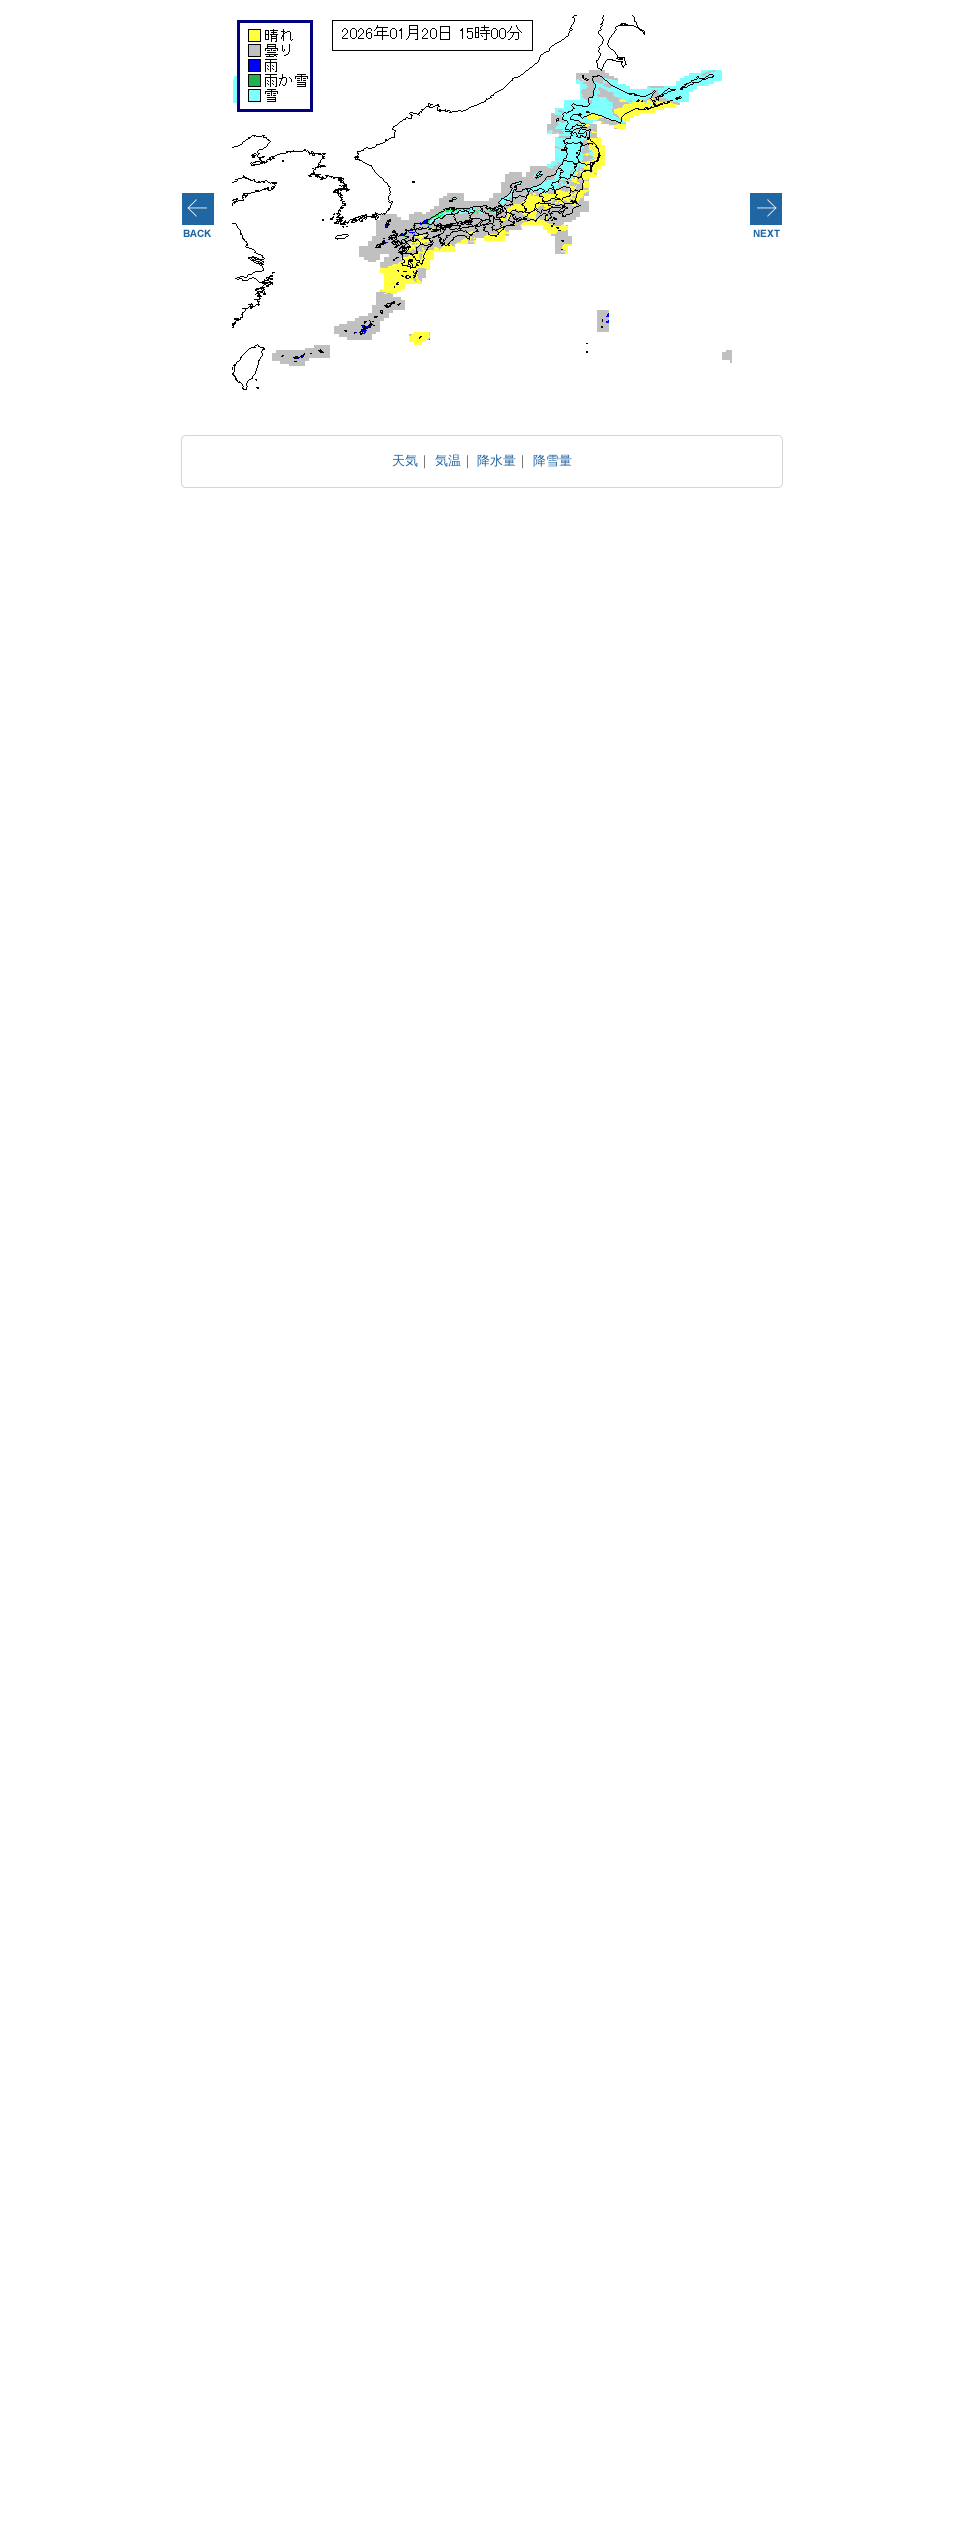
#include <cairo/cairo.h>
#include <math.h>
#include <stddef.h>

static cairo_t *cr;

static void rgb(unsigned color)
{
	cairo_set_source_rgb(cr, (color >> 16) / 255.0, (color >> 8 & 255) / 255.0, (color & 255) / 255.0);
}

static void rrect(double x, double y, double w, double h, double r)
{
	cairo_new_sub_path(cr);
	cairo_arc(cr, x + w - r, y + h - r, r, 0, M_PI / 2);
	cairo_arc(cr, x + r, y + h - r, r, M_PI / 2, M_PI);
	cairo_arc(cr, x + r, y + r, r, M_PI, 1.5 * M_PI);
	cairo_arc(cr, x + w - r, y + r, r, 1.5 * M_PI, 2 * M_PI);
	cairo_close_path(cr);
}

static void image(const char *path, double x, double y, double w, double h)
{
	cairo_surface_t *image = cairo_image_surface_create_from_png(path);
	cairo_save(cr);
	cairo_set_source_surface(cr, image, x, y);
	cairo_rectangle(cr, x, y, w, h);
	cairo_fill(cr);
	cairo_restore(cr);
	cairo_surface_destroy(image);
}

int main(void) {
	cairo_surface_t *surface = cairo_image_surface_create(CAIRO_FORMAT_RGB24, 964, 2539);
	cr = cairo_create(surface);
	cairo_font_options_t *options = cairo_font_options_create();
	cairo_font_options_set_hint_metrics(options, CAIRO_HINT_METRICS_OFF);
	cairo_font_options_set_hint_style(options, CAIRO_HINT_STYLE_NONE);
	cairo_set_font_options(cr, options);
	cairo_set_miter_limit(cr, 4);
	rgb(0xffffff);
	cairo_paint(cr);
	image("img/1.png", 182, 193, 32, 44);
	image("img/2.png", 232, 15, 500, 375);
	image("img/3.png", 750, 193, 32, 44);
	rrect(181.5, 435.5, 601, 52, 4.5);
	rgb(0xd6d6d6);
	cairo_set_line_width(cr, 1);
	cairo_stroke(cr);
	cairo_select_font_face(cr, "WenQuanYi Zen Hei Medium", CAIRO_FONT_SLANT_NORMAL, CAIRO_FONT_WEIGHT_NORMAL);
	cairo_set_font_size(cr, 13);
	rgb(0x1f66a3);
	cairo_move_to(cr, 392, 465);
	cairo_show_text(cr, "天気");
	rgb(0x545454);
	cairo_move_to(cr, 418, 465);
	cairo_show_text(cr, "｜");
	rgb(0x1f66a3);
	cairo_move_to(cr, 435, 465);
	cairo_show_text(cr, "気温");
	rgb(0x545454);
	cairo_move_to(cr, 461, 465);
	cairo_show_text(cr, "｜");
	rgb(0x1f66a3);
	cairo_move_to(cr, 477, 465);
	cairo_show_text(cr, "降水量");
	rgb(0x545454);
	cairo_move_to(cr, 516, 465);
	cairo_show_text(cr, "｜");
	rgb(0x1f66a3);
	cairo_move_to(cr, 533, 465);
	cairo_show_text(cr, "降雪量");
	cairo_surface_write_to_png(surface, "page.png");
	cairo_font_options_destroy(options);
	cairo_destroy(cr);
	cairo_surface_destroy(surface);
	return 0;
}
